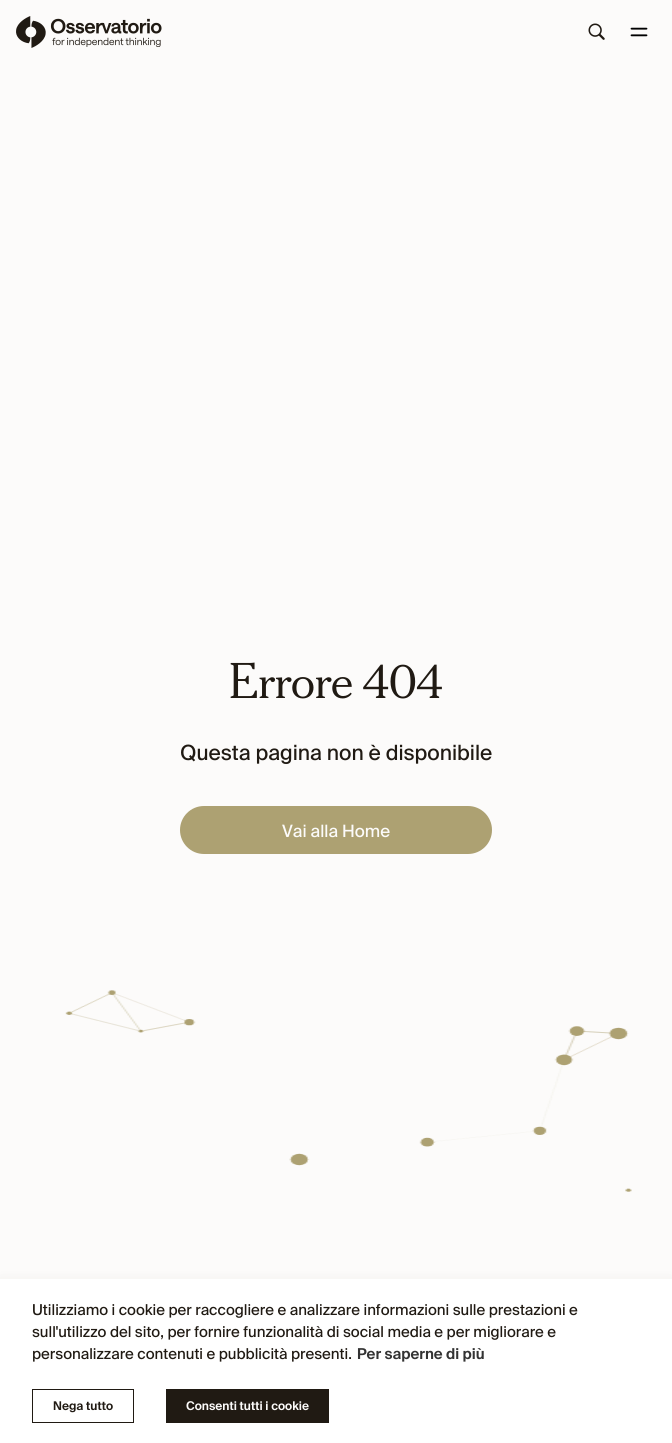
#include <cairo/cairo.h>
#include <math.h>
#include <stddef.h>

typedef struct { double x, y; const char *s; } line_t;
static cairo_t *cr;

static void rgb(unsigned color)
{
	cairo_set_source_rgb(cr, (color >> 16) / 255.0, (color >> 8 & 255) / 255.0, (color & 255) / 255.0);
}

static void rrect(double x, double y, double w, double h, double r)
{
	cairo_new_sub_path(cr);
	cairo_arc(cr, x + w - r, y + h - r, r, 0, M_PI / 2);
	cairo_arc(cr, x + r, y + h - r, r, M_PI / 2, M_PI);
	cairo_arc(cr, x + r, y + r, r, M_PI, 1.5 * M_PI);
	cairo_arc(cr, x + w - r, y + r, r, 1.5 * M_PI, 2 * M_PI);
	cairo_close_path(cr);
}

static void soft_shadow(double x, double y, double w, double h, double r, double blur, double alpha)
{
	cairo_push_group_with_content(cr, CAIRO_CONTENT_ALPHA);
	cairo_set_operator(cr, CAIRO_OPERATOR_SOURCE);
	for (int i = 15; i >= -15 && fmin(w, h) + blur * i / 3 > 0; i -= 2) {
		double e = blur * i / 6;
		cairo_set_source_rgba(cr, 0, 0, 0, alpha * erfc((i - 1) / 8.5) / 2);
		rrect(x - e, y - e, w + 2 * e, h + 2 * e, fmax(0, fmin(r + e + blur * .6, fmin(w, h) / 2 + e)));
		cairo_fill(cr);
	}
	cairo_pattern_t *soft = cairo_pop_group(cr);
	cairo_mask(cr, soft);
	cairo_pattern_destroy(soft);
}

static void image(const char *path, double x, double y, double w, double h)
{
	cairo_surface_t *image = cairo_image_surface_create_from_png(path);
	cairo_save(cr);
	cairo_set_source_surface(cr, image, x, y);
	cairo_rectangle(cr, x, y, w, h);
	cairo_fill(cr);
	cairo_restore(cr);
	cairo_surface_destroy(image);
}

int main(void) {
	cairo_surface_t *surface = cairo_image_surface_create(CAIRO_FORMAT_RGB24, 672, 1443);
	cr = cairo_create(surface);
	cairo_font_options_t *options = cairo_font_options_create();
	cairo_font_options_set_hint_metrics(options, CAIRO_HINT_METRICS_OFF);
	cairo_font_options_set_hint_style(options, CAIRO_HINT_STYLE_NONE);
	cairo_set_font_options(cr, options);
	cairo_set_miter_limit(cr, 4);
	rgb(0xfcfbfa);
	cairo_paint(cr);
	image("img/1.png", 16, 16, 146, 32);
	image("img/2.png", 588, 23, 17, 17);
	image("img/3.png", 630, 27, 18, 10);
	rgb(0xada172);
	rrect(180, 806, 312, 48, 24);
	cairo_fill(cr);
	image("img/4.png", 65, 990, 567, 202);
	rgb(0x201a13);
	soft_shadow(0, 1283, 672, 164, 0, 8, 0.08);
	rgb(0xffffff);
	cairo_rectangle(cr, 0, 1279, 672, 164);
	cairo_fill(cr);
	cairo_rectangle(cr, 32.5, 1389.5, 101, 33);
	rgb(0x201a13);
	cairo_set_line_width(cr, 1);
	cairo_stroke(cr);
	cairo_rectangle(cr, 166, 1389, 163, 34);
	cairo_fill(cr);
	cairo_select_font_face(cr, "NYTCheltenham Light", CAIRO_FONT_SLANT_NORMAL, CAIRO_FONT_WEIGHT_NORMAL);
	cairo_set_font_size(cr, 48);
	cairo_move_to(cr, 229, 698);
	cairo_show_text(cr, "Errore 404");
	cairo_select_font_face(cr, "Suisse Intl", CAIRO_FONT_SLANT_NORMAL, CAIRO_FONT_WEIGHT_NORMAL);
	cairo_set_font_size(cr, 21);
	cairo_move_to(cr, 180, 760);
	cairo_show_text(cr, "Questa pagina non è disponibile");
	cairo_set_font_size(cr, 17);
	rgb(0xfcfbfa);
	cairo_move_to(cr, 282, 837);
	cairo_show_text(cr, "Vai alla Home");
	cairo_set_font_size(cr, 15);
	rgb(0x201a13);
	{
		static const line_t items[] = {
			{32, 1315, "Utilizziamo i cookie per raccogliere e analizzare informazioni sulle prestazioni e"},
			{32, 1337, "sull'utilizzo del sito, per fornire funzionalità di social media e per migliorare e"},
			{32, 1359, "personalizzare contenuti e pubblicità presenti."},
		};
		for (size_t i = 0; i < sizeof items / sizeof *items; i++) {
			cairo_move_to(cr, items[i].x, items[i].y);
			cairo_show_text(cr, items[i].s);
		}
	}
	cairo_select_font_face(cr, "Suisse Intl SemiBold", CAIRO_FONT_SLANT_NORMAL, CAIRO_FONT_WEIGHT_NORMAL);
	rgb(0x333333);
	cairo_move_to(cr, 357, 1359);
	cairo_show_text(cr, "Per saperne di più");
	cairo_set_font_size(cr, 12);
	rgb(0x201a13);
	cairo_move_to(cr, 53, 1410);
	cairo_show_text(cr, "Nega tutto");
	rgb(0xfcfbfa);
	cairo_move_to(cr, 186, 1410);
	cairo_show_text(cr, "Consenti tutti i cookie");
	cairo_surface_write_to_png(surface, "page.png");
	cairo_font_options_destroy(options);
	cairo_destroy(cr);
	cairo_surface_destroy(surface);
	return 0;
}
